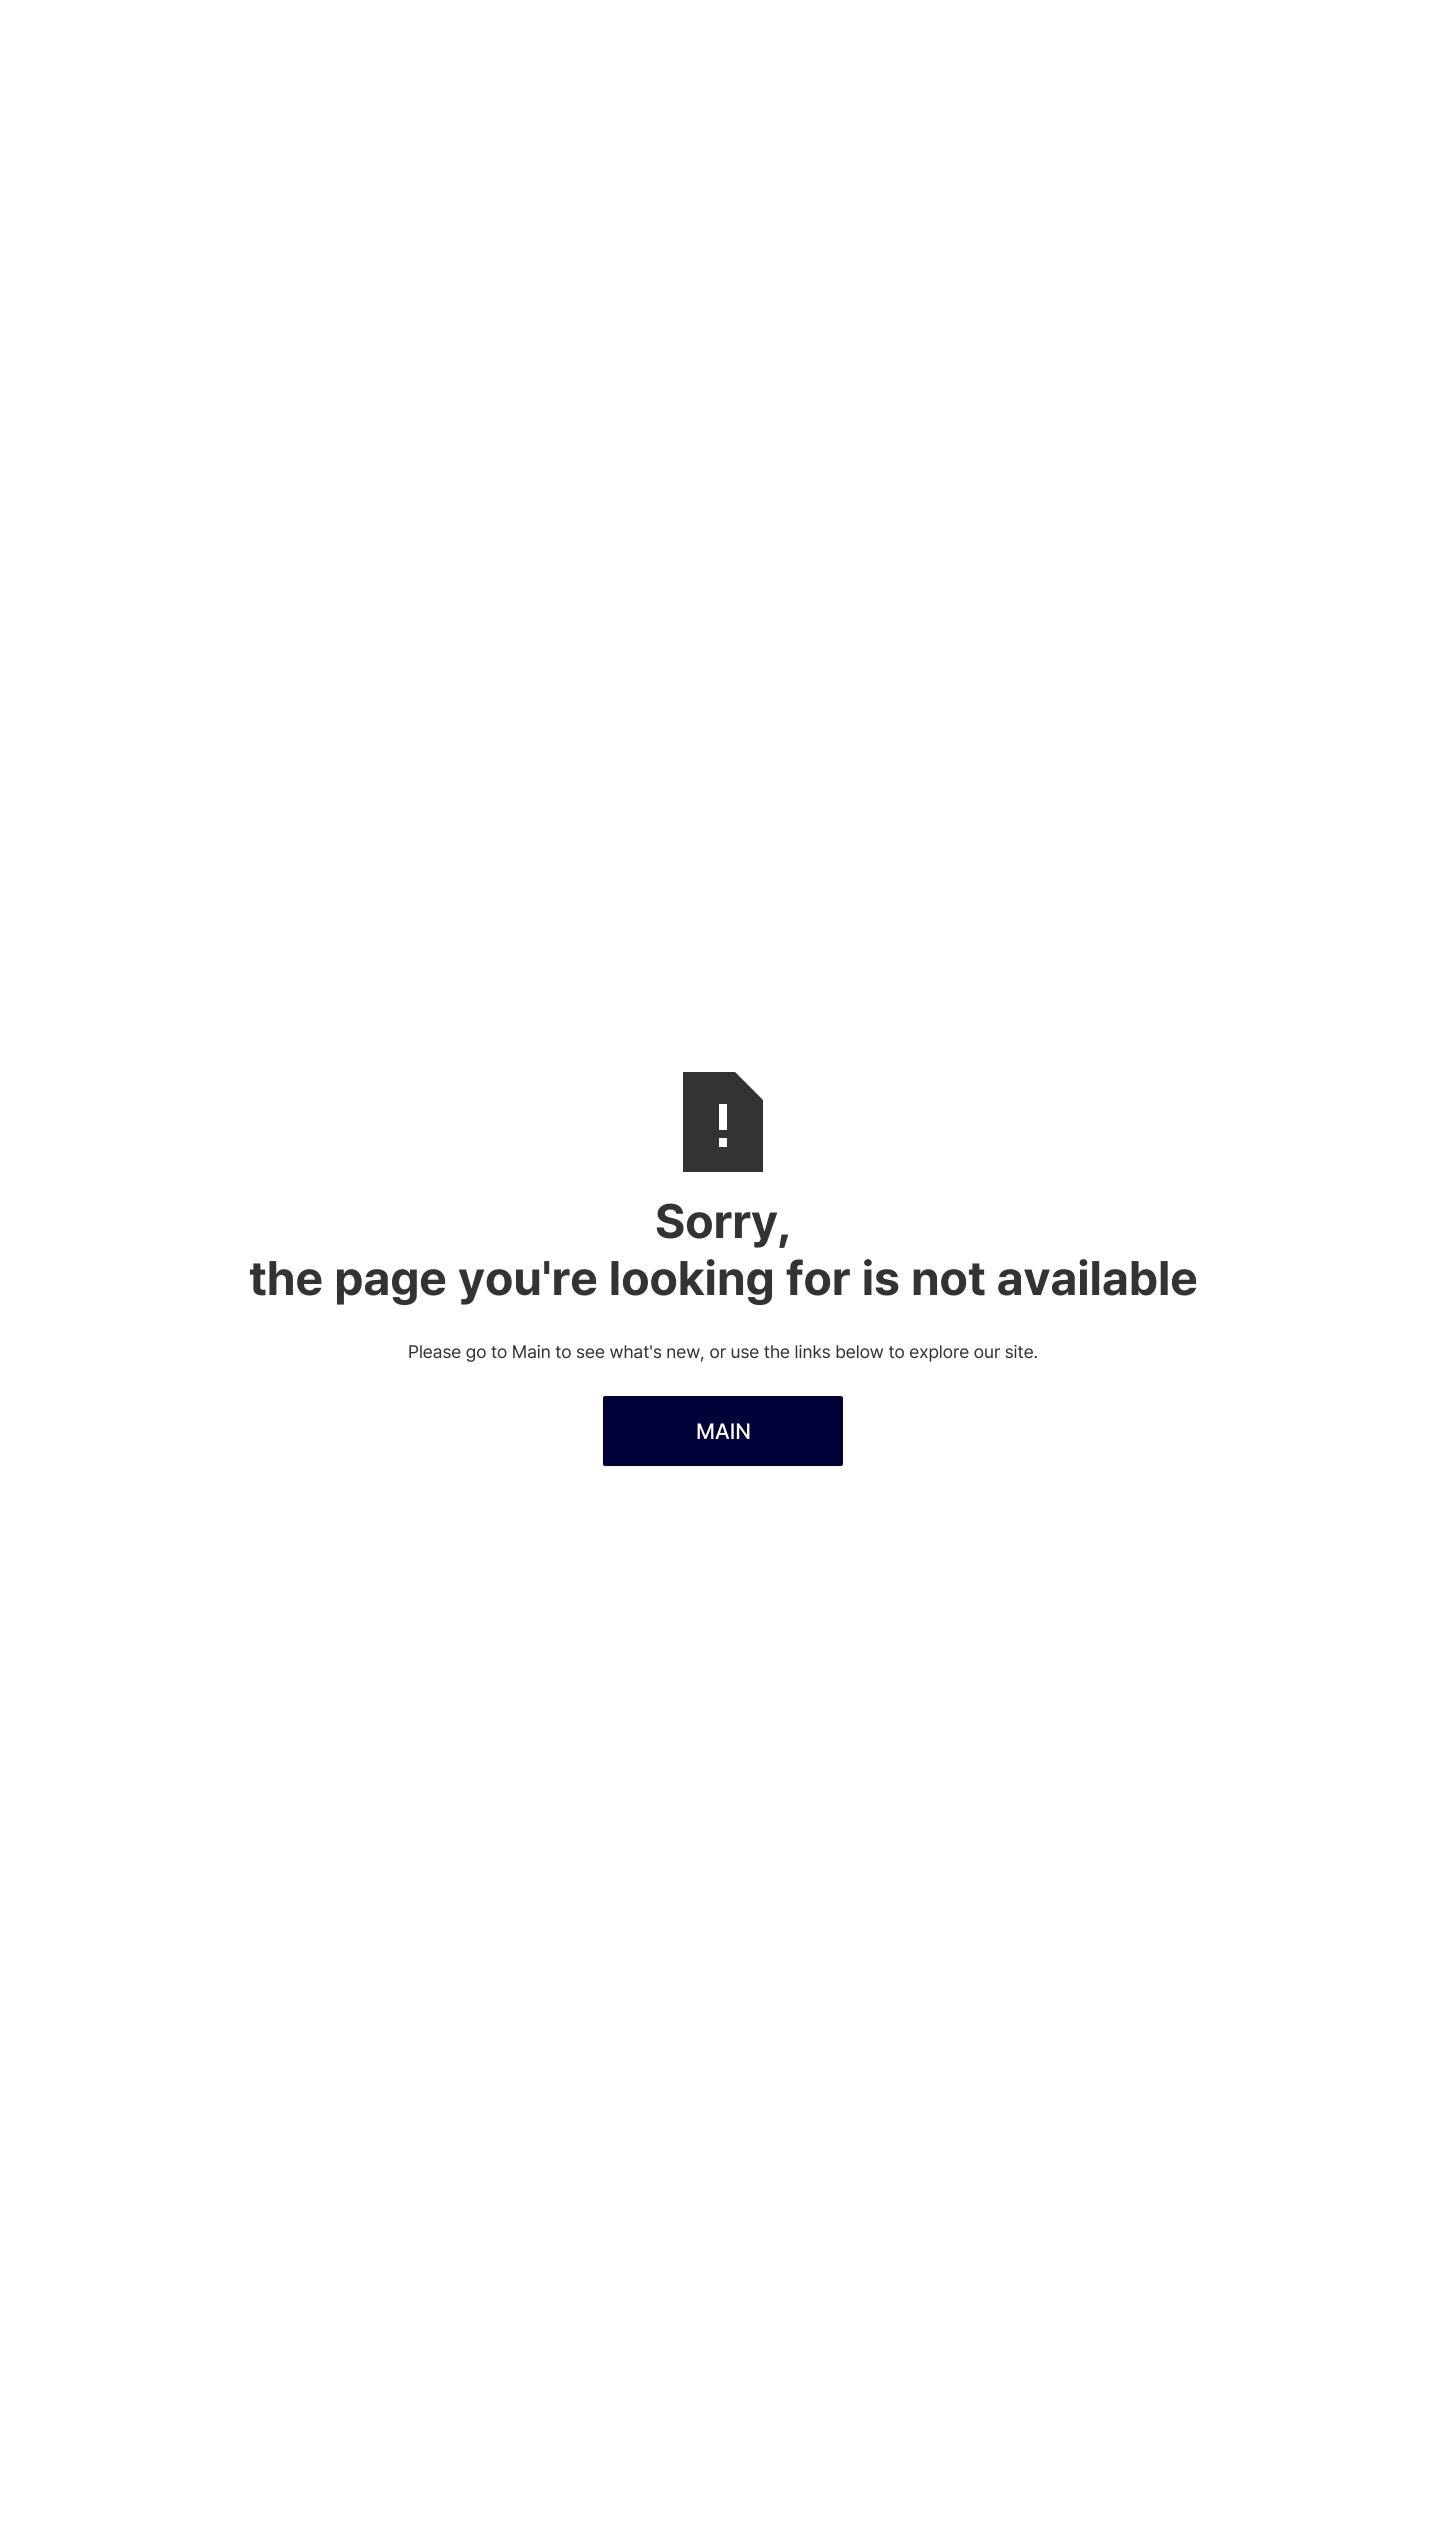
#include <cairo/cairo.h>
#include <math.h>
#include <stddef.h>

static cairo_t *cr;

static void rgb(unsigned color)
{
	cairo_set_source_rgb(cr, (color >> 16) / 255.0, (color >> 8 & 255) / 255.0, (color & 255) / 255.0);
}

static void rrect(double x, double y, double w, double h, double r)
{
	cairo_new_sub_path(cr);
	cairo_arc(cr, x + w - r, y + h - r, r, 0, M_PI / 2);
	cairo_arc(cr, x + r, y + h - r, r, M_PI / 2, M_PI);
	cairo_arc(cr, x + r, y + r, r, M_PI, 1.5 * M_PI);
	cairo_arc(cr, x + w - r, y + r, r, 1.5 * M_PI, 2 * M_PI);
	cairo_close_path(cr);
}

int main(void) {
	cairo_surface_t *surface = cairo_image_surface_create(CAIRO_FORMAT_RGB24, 1446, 2538);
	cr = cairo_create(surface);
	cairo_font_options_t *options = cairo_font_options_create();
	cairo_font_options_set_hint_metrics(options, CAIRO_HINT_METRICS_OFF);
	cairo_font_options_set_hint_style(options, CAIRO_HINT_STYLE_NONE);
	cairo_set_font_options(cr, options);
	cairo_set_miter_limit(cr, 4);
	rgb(0xffffff);
	cairo_paint(cr);
	rgb(0x333333);
	cairo_set_fill_rule(cr, CAIRO_FILL_RULE_EVEN_ODD);
	cairo_new_path(cr);
	cairo_move_to(cr, 683, 1072);
	cairo_line_to(cr, 735, 1072);
	cairo_line_to(cr, 763, 1100);
	cairo_line_to(cr, 763, 1172);
	cairo_line_to(cr, 683, 1172);
	cairo_close_path(cr);
	cairo_move_to(cr, 719, 1104);
	cairo_line_to(cr, 727, 1104);
	cairo_line_to(cr, 727, 1130);
	cairo_line_to(cr, 719, 1130);
	cairo_close_path(cr);
	cairo_move_to(cr, 719, 1138);
	cairo_line_to(cr, 727, 1138);
	cairo_line_to(cr, 727, 1147);
	cairo_line_to(cr, 719, 1147);
	cairo_close_path(cr);
	cairo_fill(cr);
	rgb(0x000038);
	rrect(603, 1396, 240, 70, 2);
	cairo_fill(cr);
	cairo_select_font_face(cr, "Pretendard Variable", CAIRO_FONT_SLANT_NORMAL, CAIRO_FONT_WEIGHT_BOLD);
	cairo_set_font_size(cr, 48);
	rgb(0x333333);
	cairo_move_to(cr, 655, 1238);
	cairo_show_text(cr, "Sorry,");
	cairo_move_to(cr, 249, 1295);
	cairo_show_text(cr, "the page you're looking for is not available");
	cairo_select_font_face(cr, "Pretendard Variable", CAIRO_FONT_SLANT_NORMAL, CAIRO_FONT_WEIGHT_NORMAL);
	cairo_set_font_size(cr, 18);
	cairo_move_to(cr, 408, 1358);
	cairo_show_text(cr, "Please go to Main to see what's new, or use the links below to explore our site.");
	cairo_select_font_face(cr, "Pretendard Variable Medium", CAIRO_FONT_SLANT_NORMAL, CAIRO_FONT_WEIGHT_NORMAL);
	cairo_set_font_size(cr, 22);
	rgb(0xffffff);
	cairo_move_to(cr, 696, 1439);
	cairo_show_text(cr, "MAIN");
	cairo_surface_write_to_png(surface, "page.png");
	cairo_font_options_destroy(options);
	cairo_destroy(cr);
	cairo_surface_destroy(surface);
	return 0;
}
